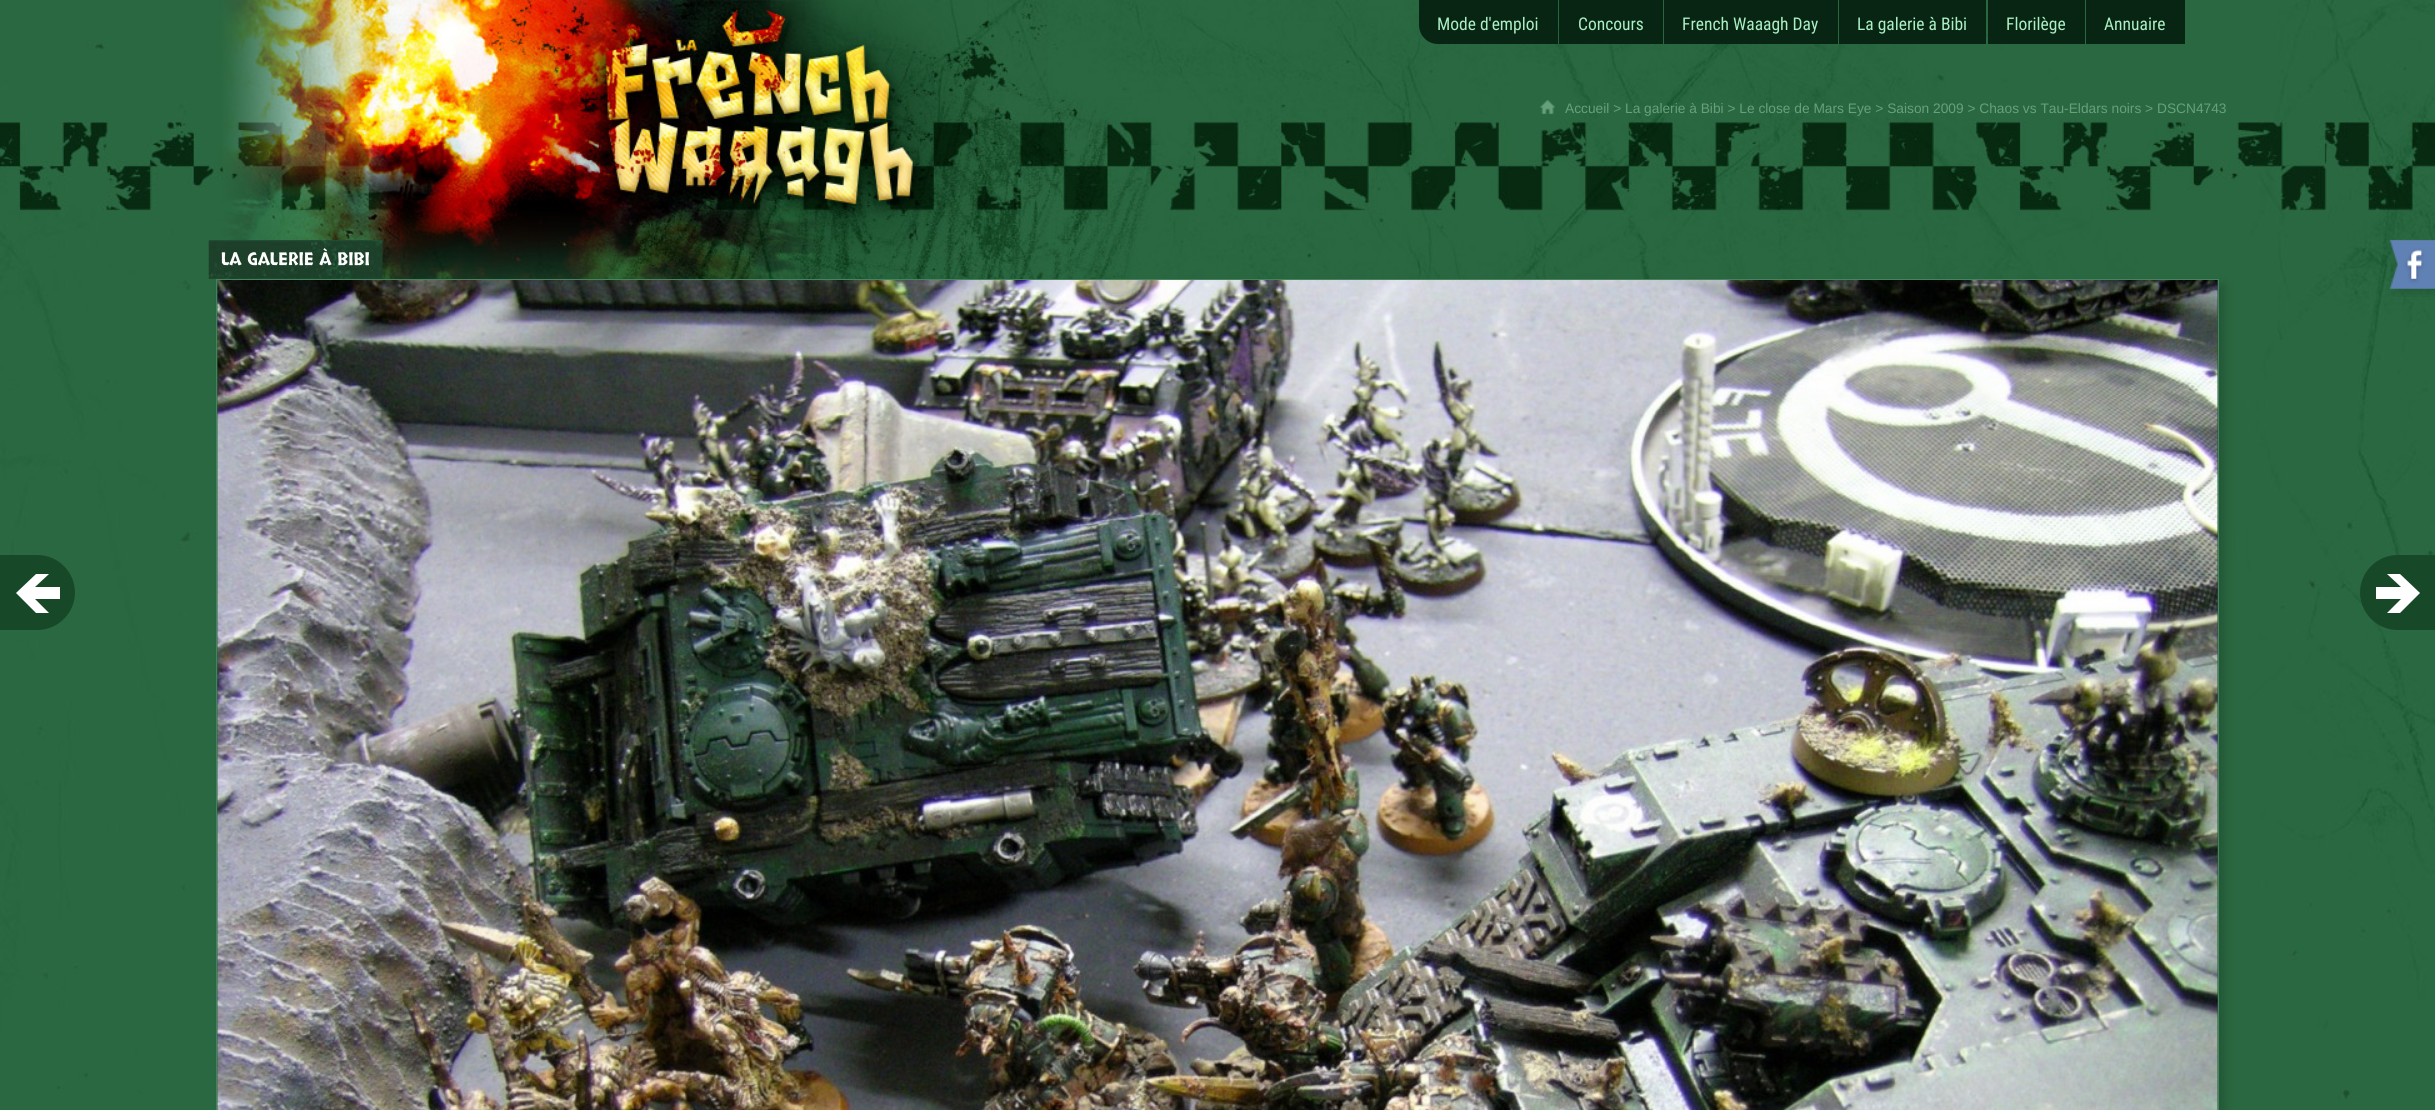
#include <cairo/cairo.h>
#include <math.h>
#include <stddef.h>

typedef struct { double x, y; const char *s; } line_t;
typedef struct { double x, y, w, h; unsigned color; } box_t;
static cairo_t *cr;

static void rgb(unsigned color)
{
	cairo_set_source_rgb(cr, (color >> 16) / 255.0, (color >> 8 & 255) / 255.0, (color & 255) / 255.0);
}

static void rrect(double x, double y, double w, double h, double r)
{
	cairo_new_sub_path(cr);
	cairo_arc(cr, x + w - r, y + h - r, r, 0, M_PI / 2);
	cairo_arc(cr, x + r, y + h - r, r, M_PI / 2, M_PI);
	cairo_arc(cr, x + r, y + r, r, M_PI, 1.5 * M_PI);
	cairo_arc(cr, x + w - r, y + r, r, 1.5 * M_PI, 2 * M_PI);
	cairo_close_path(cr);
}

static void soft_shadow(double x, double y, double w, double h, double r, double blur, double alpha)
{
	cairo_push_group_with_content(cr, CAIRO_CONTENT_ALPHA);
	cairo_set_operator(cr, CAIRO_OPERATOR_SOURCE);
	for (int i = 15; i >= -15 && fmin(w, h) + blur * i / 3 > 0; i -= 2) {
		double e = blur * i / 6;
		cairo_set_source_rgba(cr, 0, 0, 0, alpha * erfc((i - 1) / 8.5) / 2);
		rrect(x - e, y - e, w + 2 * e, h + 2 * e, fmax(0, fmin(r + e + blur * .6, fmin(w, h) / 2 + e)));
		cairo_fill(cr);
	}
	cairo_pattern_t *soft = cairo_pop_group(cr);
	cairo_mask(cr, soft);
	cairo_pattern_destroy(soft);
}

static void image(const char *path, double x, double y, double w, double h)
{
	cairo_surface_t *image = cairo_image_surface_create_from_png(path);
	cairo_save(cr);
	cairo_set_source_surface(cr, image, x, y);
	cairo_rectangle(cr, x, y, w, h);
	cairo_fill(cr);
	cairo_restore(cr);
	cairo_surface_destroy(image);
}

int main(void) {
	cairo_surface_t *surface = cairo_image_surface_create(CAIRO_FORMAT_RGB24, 2435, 1110);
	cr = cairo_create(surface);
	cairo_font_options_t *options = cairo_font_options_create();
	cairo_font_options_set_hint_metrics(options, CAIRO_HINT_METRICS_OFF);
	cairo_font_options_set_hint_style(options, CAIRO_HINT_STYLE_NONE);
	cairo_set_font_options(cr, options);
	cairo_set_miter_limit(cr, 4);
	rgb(0x2a6841);
	cairo_paint(cr);
	image("img/1.png", 0, 0, 2435, 1100);
	rgb(0x082513);
	cairo_new_path(cr);
	cairo_move_to(cr, 1419, 0);
	cairo_line_to(cr, 1558, 0);
	cairo_line_to(cr, 1558, 44);
	cairo_line_to(cr, 1438, 44);
	cairo_curve_to(cr, 1427.5, 44, 1419, 35.5, 1419, 25);
	cairo_close_path(cr);
	cairo_fill(cr);
	{
		static const box_t items[] = {
			{1559, 0, 104, 44, 0x082513},
			{1664, 0, 174, 44, 0x082513},
			{1839, 0, 147, 44, 0x082513},
			{1988, 0, 97, 44, 0x082513},
			{2086, 0, 99, 44, 0x082513},
		};
		for (size_t i = 0; i < sizeof items / sizeof *items; i++) {
			rgb(items[i].color);
			cairo_rectangle(cr, items[i].x, items[i].y, items[i].w, items[i].h);
			cairo_fill(cr);
		}
	}
	image("img/2.png", 1540, 100, 15, 15);
	image("img/3.png", 208, 240, 175, 39);
	rgb(0x0f2b19);
	soft_shadow(223, 285, 2002, 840, 0, 5, 0.29);
	cairo_rectangle(cr, 216.5, 279.5, 2002, 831);
	rgb(0x48815d);
	cairo_set_line_width(cr, 1);
	cairo_stroke(cr);
	image("img/4.png", 217, 280, 2001, 830);
	rgb(0x174929);
	cairo_new_path(cr);
	cairo_move_to(cr, 0, 555);
	cairo_line_to(cr, 37.5, 555);
	cairo_curve_to(cr, 58, 555, 75, 572, 75, 592.5);
	cairo_curve_to(cr, 75, 613, 58, 630, 37.5, 630);
	cairo_line_to(cr, 0, 630);
	cairo_close_path(cr);
	cairo_fill(cr);
	rgb(0xffffff);
	cairo_new_path(cr);
	cairo_move_to(cr, 16, 593);
	cairo_line_to(cr, 36, 613);
	cairo_line_to(cr, 49, 613);
	cairo_line_to(cr, 35, 599);
	cairo_line_to(cr, 60, 599);
	cairo_line_to(cr, 60, 587);
	cairo_line_to(cr, 35, 587);
	cairo_line_to(cr, 49, 574);
	cairo_line_to(cr, 36, 574);
	cairo_close_path(cr);
	cairo_fill(cr);
	rgb(0x174929);
	cairo_new_path(cr);
	cairo_move_to(cr, 2397.5, 555);
	cairo_line_to(cr, 2435, 555);
	cairo_line_to(cr, 2435, 630);
	cairo_line_to(cr, 2397.5, 630);
	cairo_curve_to(cr, 2377, 630, 2360, 613, 2360, 592.5);
	cairo_curve_to(cr, 2360, 572, 2377, 555, 2397.5, 555);
	cairo_close_path(cr);
	cairo_fill(cr);
	rgb(0xffffff);
	cairo_new_path(cr);
	cairo_move_to(cr, 2420, 593);
	cairo_line_to(cr, 2400, 613);
	cairo_line_to(cr, 2387, 613);
	cairo_line_to(cr, 2401, 599);
	cairo_line_to(cr, 2376, 599);
	cairo_line_to(cr, 2376, 587);
	cairo_line_to(cr, 2401, 587);
	cairo_line_to(cr, 2387, 574);
	cairo_line_to(cr, 2400, 574);
	cairo_close_path(cr);
	cairo_fill(cr);
	image("img/5.png", 2389, 239, 46, 58);
	cairo_select_font_face(cr, "Roboto Condensed", CAIRO_FONT_SLANT_NORMAL, CAIRO_FONT_WEIGHT_NORMAL);
	cairo_set_font_size(cr, 17.5);
	rgb(0xabefc4);
	{
		static const line_t items[] = {
			{1437, 30, "Mode d'emploi"},
			{1578, 30, "Concours"},
			{1682, 30, "French Waaagh Day"},
			{1857, 30, "La galerie à Bibi"},
			{2006, 30, "Florilège"},
			{2104, 30, "Annuaire"},
		};
		for (size_t i = 0; i < sizeof items / sizeof *items; i++) {
			cairo_move_to(cr, items[i].x, items[i].y);
			cairo_show_text(cr, items[i].s);
		}
	}
	cairo_select_font_face(cr, "Liberation Sans", CAIRO_FONT_SLANT_NORMAL, CAIRO_FONT_WEIGHT_NORMAL);
	cairo_set_font_size(cr, 13.75);
	rgb(0x67a17c);
	cairo_move_to(cr, 1565, 113);
	cairo_show_text(cr, "Accueil > La galerie à Bibi > Le close de Mars Eye > Saison 2009 > Chaos vs Tau-Eldars noirs > DSCN4743");
	cairo_select_font_face(cr, "Skranji", CAIRO_FONT_SLANT_NORMAL, CAIRO_FONT_WEIGHT_NORMAL);
	cairo_set_font_size(cr, 17.5);
	rgb(0xffffff);
	cairo_move_to(cr, 221, 265);
	cairo_show_text(cr, "LA GALERIE À BIBI");
	cairo_surface_write_to_png(surface, "page.png");
	cairo_font_options_destroy(options);
	cairo_destroy(cr);
	cairo_surface_destroy(surface);
	return 0;
}
